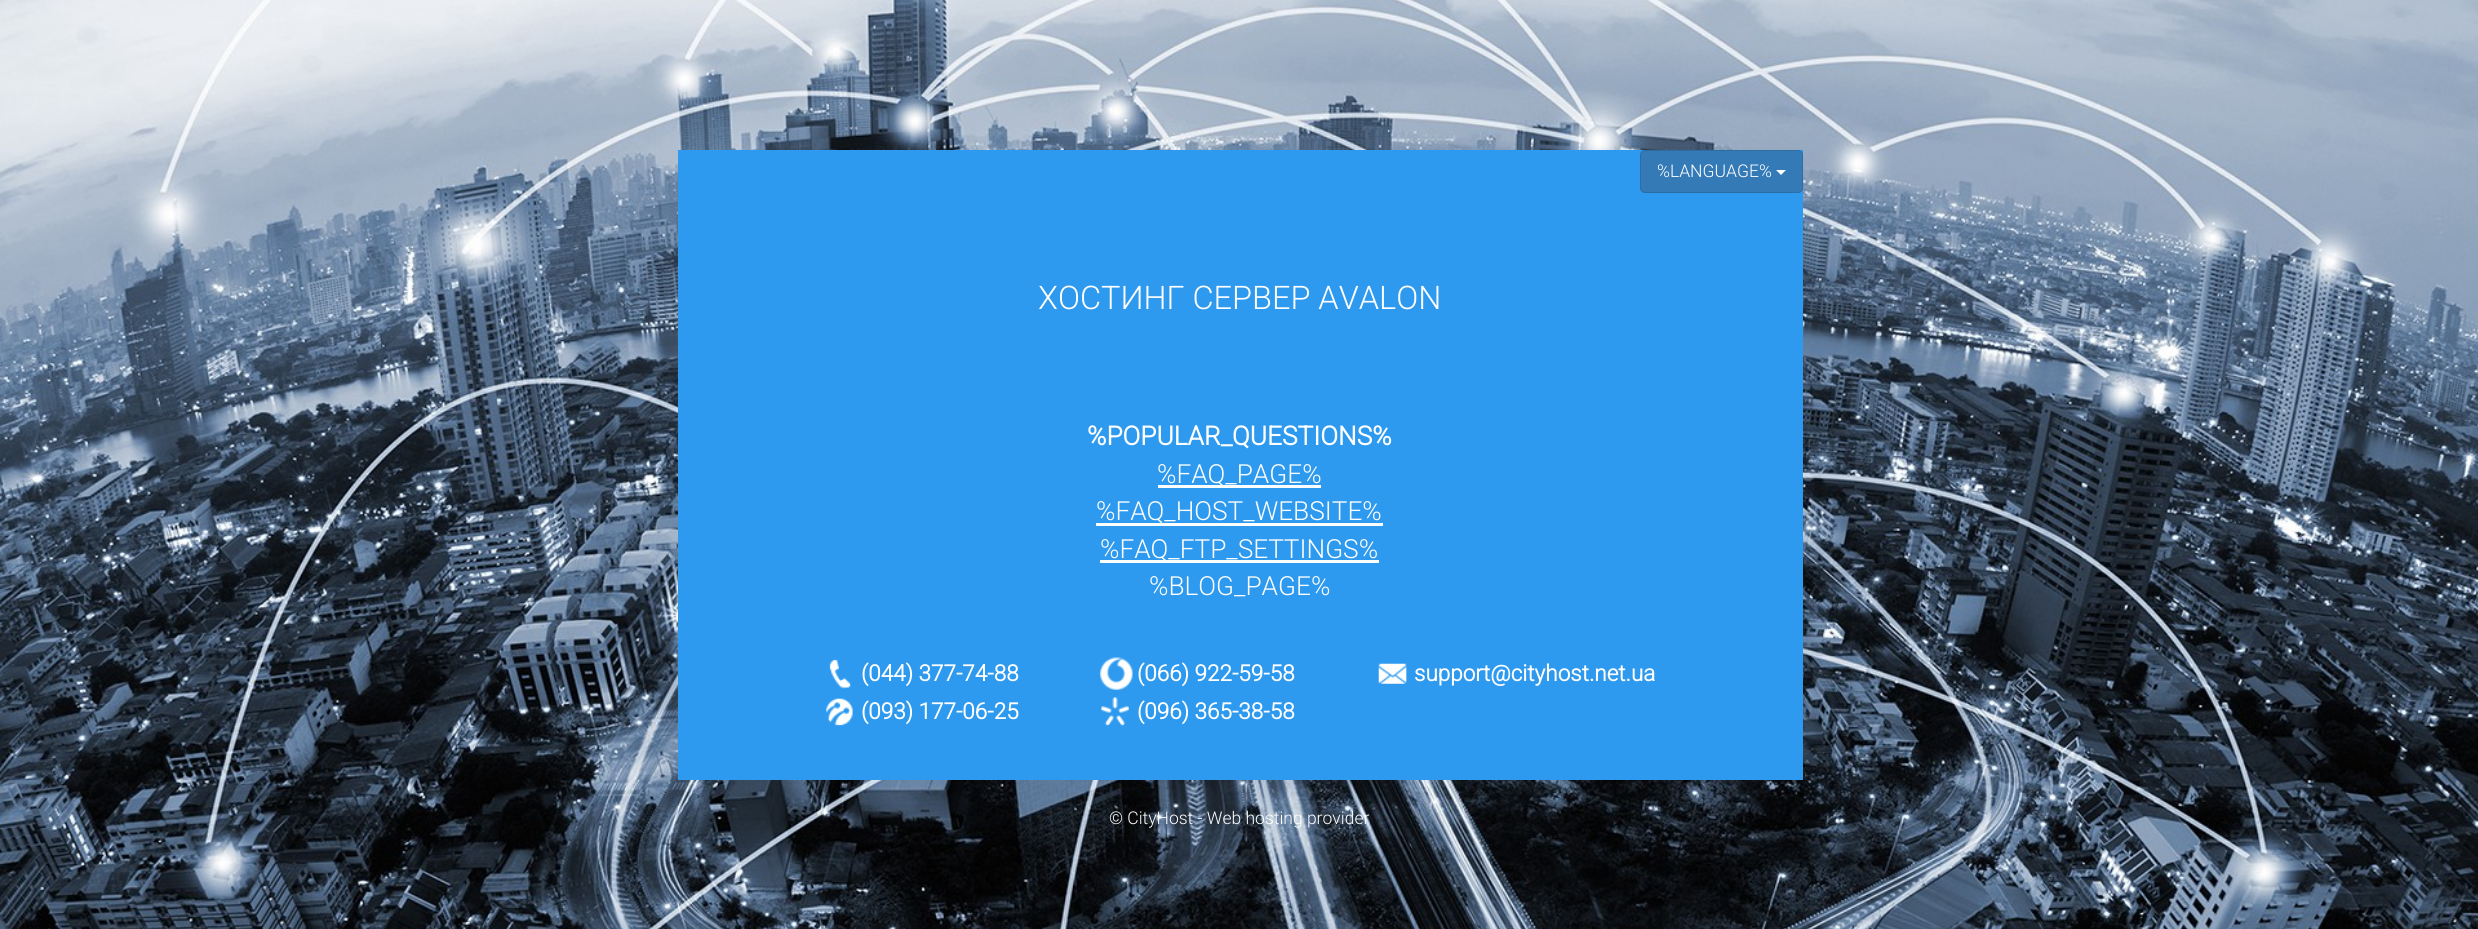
#include <cairo/cairo.h>
#include <math.h>
#include <stddef.h>

typedef struct { double x, y; const char *s; } line_t;
typedef struct { double x, y, w, h; unsigned color; } box_t;
static cairo_t *cr;

static void rgb(unsigned color)
{
	cairo_set_source_rgb(cr, (color >> 16) / 255.0, (color >> 8 & 255) / 255.0, (color & 255) / 255.0);
}

static void rrect(double x, double y, double w, double h, double r)
{
	cairo_new_sub_path(cr);
	cairo_arc(cr, x + w - r, y + h - r, r, 0, M_PI / 2);
	cairo_arc(cr, x + r, y + h - r, r, M_PI / 2, M_PI);
	cairo_arc(cr, x + r, y + r, r, M_PI, 1.5 * M_PI);
	cairo_arc(cr, x + w - r, y + r, r, 1.5 * M_PI, 2 * M_PI);
	cairo_close_path(cr);
}

static void image(const char *path, double x, double y, double w, double h)
{
	cairo_surface_t *image = cairo_image_surface_create_from_png(path);
	cairo_save(cr);
	cairo_set_source_surface(cr, image, x, y);
	cairo_rectangle(cr, x, y, w, h);
	cairo_fill(cr);
	cairo_restore(cr);
	cairo_surface_destroy(image);
}

int main(void) {
	cairo_surface_t *surface = cairo_image_surface_create(CAIRO_FORMAT_RGB24, 2478, 929);
	cr = cairo_create(surface);
	cairo_font_options_t *options = cairo_font_options_create();
	cairo_font_options_set_hint_metrics(options, CAIRO_HINT_METRICS_OFF);
	cairo_font_options_set_hint_style(options, CAIRO_HINT_STYLE_NONE);
	cairo_set_font_options(cr, options);
	cairo_set_miter_limit(cr, 4);
	rgb(0xffffff);
	cairo_paint(cr);
	image("img/1.png", 0, 0, 2478, 929);
	rgb(0x2e9aef);
	cairo_rectangle(cr, 678, 150, 1125, 630);
	cairo_fill(cr);
	rgb(0x337ab7);
	rrect(1640.5, 150.5, 162, 42, 4.5);
	cairo_fill_preserve(cr);
	rgb(0x2e6da4);
	cairo_set_line_width(cr, 1);
	cairo_stroke(cr);
	rgb(0xffffff);
	cairo_new_path(cr);
	cairo_move_to(cr, 1776, 170);
	cairo_line_to(cr, 1786, 170);
	cairo_line_to(cr, 1781, 175);
	cairo_close_path(cr);
	cairo_fill(cr);
	{
		static const box_t items[] = {
			{1158, 485, 163, 3, 0xffffff},
			{1096, 523, 287, 3, 0xffffff},
			{1100, 560, 279, 3, 0xffffff},
		};
		for (size_t i = 0; i < sizeof items / sizeof *items; i++) {
			rgb(items[i].color);
			cairo_rectangle(cr, items[i].x, items[i].y, items[i].w, items[i].h);
			cairo_fill(cr);
		}
	}
	image("img/2.png", 829, 659, 22, 30);
	image("img/3.png", 826, 698, 27, 28);
	image("img/4.png", 1100, 657, 33, 33);
	image("img/5.png", 1101, 697, 28, 29);
	image("img/6.png", 1378, 663, 29, 21);
	cairo_select_font_face(cr, "Roboto Light", CAIRO_FONT_SLANT_NORMAL, CAIRO_FONT_WEIGHT_NORMAL);
	cairo_set_font_size(cr, 17.5);
	cairo_move_to(cr, 1657, 177);
	cairo_show_text(cr, "%LANGUAGE%");
	cairo_set_font_size(cr, 32.5);
	cairo_move_to(cr, 1038, 309);
	cairo_show_text(cr, "ХОСТИНГ СЕРВЕР AVALON");
	cairo_select_font_face(cr, "Roboto", CAIRO_FONT_SLANT_NORMAL, CAIRO_FONT_WEIGHT_BOLD);
	cairo_set_font_size(cr, 26.25);
	cairo_move_to(cr, 1087, 445);
	cairo_show_text(cr, "%POPULAR_QUESTIONS%");
	cairo_select_font_face(cr, "Roboto Light", CAIRO_FONT_SLANT_NORMAL, CAIRO_FONT_WEIGHT_NORMAL);
	{
		static const line_t items[] = {
			{1157, 483, "%FAQ_PAGE%"},
			{1096, 520, "%FAQ_HOST_WEBSITE%"},
			{1100, 558, "%FAQ_FTP_SETTINGS%"},
			{1149, 595, "%BLOG_PAGE%"},
		};
		for (size_t i = 0; i < sizeof items / sizeof *items; i++) {
			cairo_move_to(cr, items[i].x, items[i].y);
			cairo_show_text(cr, items[i].s);
		}
	}
	cairo_select_font_face(cr, "Roboto", CAIRO_FONT_SLANT_NORMAL, CAIRO_FONT_WEIGHT_BOLD);
	cairo_set_font_size(cr, 22.5);
	{
		static const line_t items[] = {
			{861, 681, "(044) 377-74-88"},
			{861, 719, "(093) 177-06-25"},
			{1137, 681, "(066) 922-59-58"},
			{1137, 719, "(096) 365-38-58"},
			{1414, 681, "support@cityhost.net.ua"},
		};
		for (size_t i = 0; i < sizeof items / sizeof *items; i++) {
			cairo_move_to(cr, items[i].x, items[i].y);
			cairo_show_text(cr, items[i].s);
		}
	}
	cairo_select_font_face(cr, "Roboto Light", CAIRO_FONT_SLANT_NORMAL, CAIRO_FONT_WEIGHT_NORMAL);
	cairo_set_font_size(cr, 17.5);
	cairo_move_to(cr, 1109, 824);
	cairo_show_text(cr, "© CityHost - Web hosting provider");
	cairo_surface_write_to_png(surface, "page.png");
	cairo_font_options_destroy(options);
	cairo_destroy(cr);
	cairo_surface_destroy(surface);
	return 0;
}
